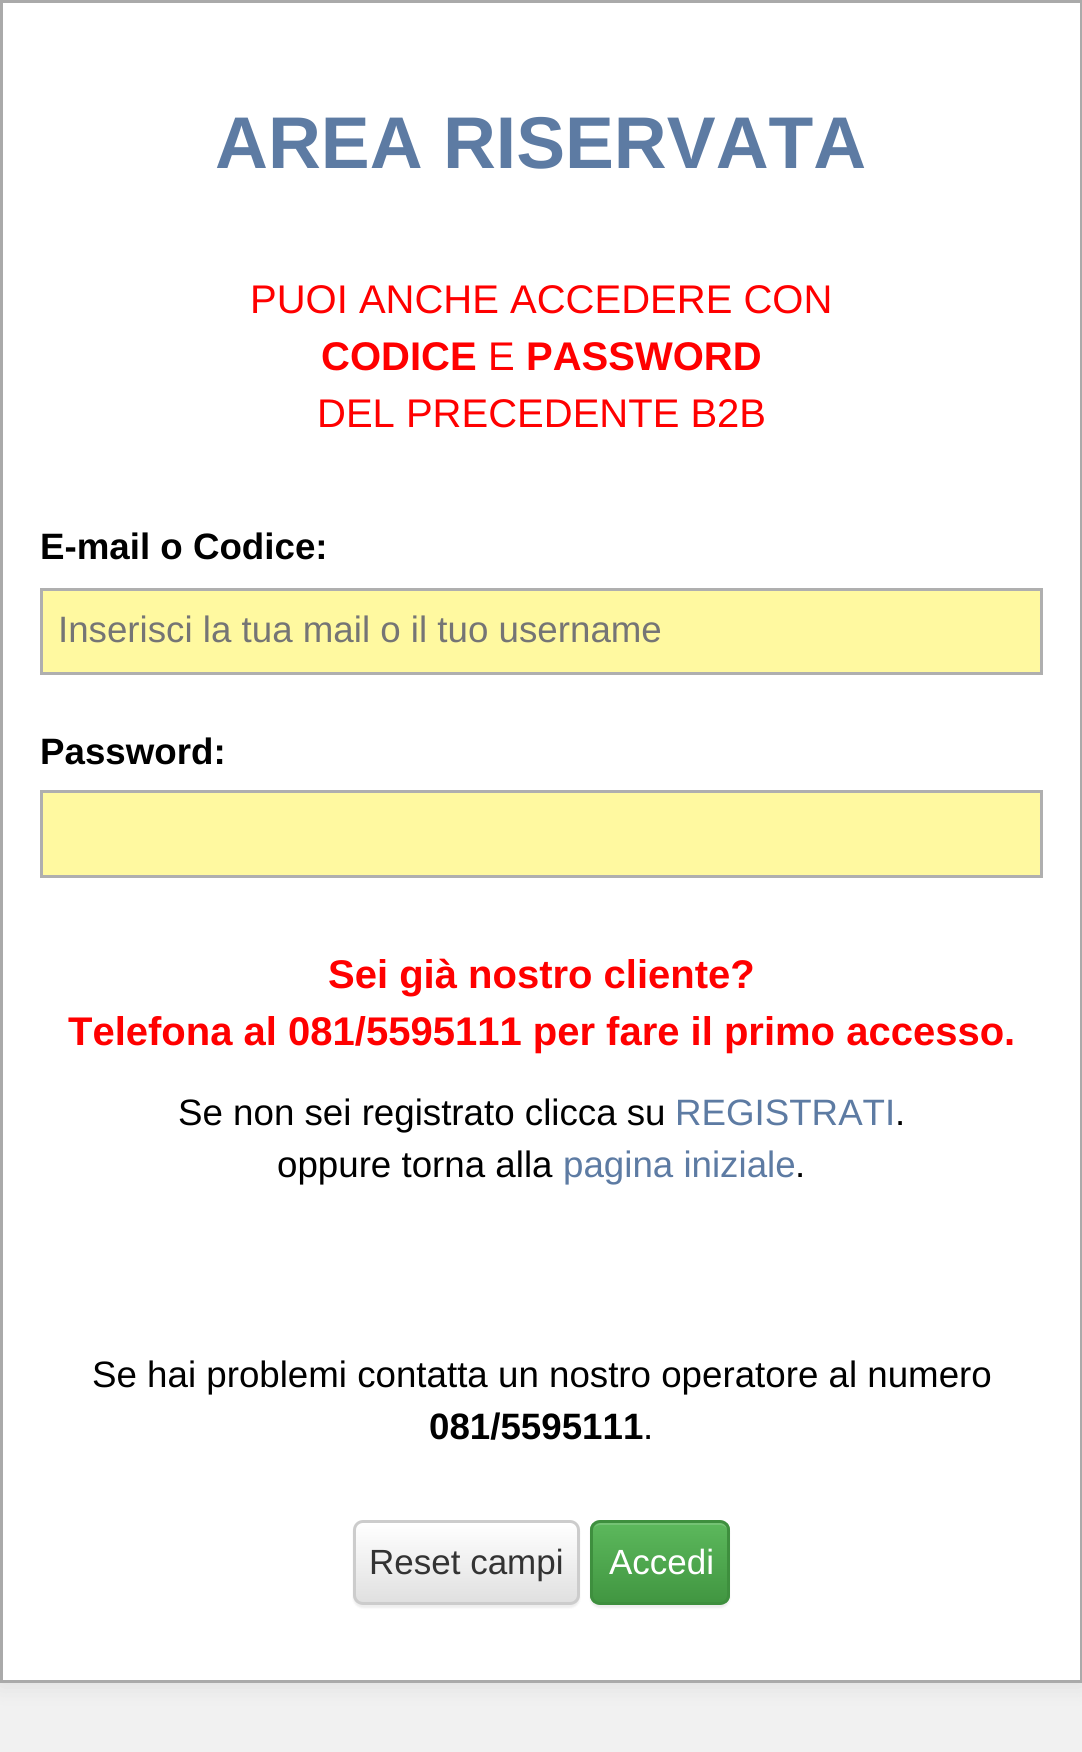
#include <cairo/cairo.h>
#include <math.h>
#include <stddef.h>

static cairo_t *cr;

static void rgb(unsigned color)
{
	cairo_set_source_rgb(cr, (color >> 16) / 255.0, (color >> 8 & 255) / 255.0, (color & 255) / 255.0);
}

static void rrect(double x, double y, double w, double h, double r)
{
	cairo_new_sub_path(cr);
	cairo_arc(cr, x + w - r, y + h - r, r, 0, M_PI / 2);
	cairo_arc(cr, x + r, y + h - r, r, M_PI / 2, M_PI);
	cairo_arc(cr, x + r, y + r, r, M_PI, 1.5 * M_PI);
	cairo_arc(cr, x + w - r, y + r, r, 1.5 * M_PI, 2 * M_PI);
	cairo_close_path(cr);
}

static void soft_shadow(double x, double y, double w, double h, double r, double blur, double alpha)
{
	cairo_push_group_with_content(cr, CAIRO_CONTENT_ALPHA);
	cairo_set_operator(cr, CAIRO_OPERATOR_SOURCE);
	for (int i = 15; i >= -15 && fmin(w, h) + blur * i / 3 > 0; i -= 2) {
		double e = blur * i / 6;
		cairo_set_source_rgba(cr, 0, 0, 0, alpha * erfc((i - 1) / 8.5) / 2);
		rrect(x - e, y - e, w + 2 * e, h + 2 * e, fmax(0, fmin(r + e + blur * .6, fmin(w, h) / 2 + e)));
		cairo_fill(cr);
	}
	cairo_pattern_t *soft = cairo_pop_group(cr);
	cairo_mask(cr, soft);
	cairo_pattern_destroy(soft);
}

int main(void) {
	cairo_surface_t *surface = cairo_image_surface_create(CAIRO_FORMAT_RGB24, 1082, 1752);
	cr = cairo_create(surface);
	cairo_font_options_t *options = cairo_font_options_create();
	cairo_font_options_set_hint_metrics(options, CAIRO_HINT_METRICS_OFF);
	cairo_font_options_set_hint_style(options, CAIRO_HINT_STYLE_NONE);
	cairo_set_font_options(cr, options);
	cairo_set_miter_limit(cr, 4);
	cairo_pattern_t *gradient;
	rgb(0xf1f1f1);
	cairo_paint(cr);
	rgb(0x000000);
	soft_shadow(0, 0, 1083, 1683, 0, 12.5, 0.1);
	rgb(0xffffff);
	cairo_rectangle(cr, 1.5, 1.5, 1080, 1680);
	cairo_fill_preserve(cr);
	rgb(0xaaaaaa);
	cairo_set_line_width(cr, 3);
	cairo_stroke(cr);
	rgb(0xfff9a0);
	cairo_rectangle(cr, 41.5, 589.5, 1000, 84);
	cairo_fill_preserve(cr);
	rgb(0xafafaf);
	cairo_stroke(cr);
	rgb(0xfff9a0);
	cairo_rectangle(cr, 41.5, 791.5, 1000, 85);
	cairo_fill_preserve(cr);
	rgb(0xafafaf);
	cairo_stroke(cr);
	rgb(0x000000);
	soft_shadow(353, 1523, 227, 85, 10, 1, 0.07);
	cairo_save(cr);
	rrect(353, 1520, 227, 85, 10);
	cairo_clip(cr);
	gradient = cairo_pattern_create_linear(466, 1523, 466, 1603);
	cairo_pattern_add_color_stop_rgba(gradient, 0, 1, 1, 1, 1);
	cairo_pattern_add_color_stop_rgba(gradient, 1, 0.878, 0.878, 0.878, 1);
	cairo_set_source(cr, gradient);
	cairo_pattern_destroy(gradient);
	cairo_rectangle(cr, 353, 1523, 227, 80);
	cairo_fill(cr);
	cairo_restore(cr);
	rrect(354.5, 1521.5, 224, 82, 8.5);
	rgb(0xcccccc);
	cairo_stroke(cr);
	rgb(0x000000);
	soft_shadow(590, 1523, 140, 85, 10, 1, 0.07);
	cairo_save(cr);
	rrect(590, 1520, 140, 85, 10);
	cairo_clip(cr);
	gradient = cairo_pattern_create_linear(660, 1523, 660, 1603);
	cairo_pattern_add_color_stop_rgba(gradient, 0, 0.361, 0.722, 0.361, 1);
	cairo_pattern_add_color_stop_rgba(gradient, 1, 0.255, 0.588, 0.255, 1);
	cairo_set_source(cr, gradient);
	cairo_pattern_destroy(gradient);
	cairo_rectangle(cr, 590, 1523, 140, 80);
	cairo_fill(cr);
	cairo_restore(cr);
	rgb(0x74c274);
	cairo_new_path(cr);
	cairo_move_to(cr, 600, 1525);
	cairo_line_to(cr, 720, 1525);
	cairo_curve_to(cr, 724, 1525, 728, 1528, 728, 1532);
	cairo_line_to(cr, 728, 1531);
	cairo_curve_to(cr, 728, 1527, 724, 1523, 720, 1523);
	cairo_line_to(cr, 601, 1523);
	cairo_curve_to(cr, 598, 1523, 595, 1525, 594, 1528);
	cairo_curve_to(cr, 595, 1526, 598, 1525, 600, 1525);
	cairo_close_path(cr);
	cairo_fill(cr);
	rrect(591.5, 1521.5, 137, 82, 8.5);
	rgb(0x3e8f3e);
	cairo_stroke(cr);
	cairo_select_font_face(cr, "Liberation Sans", CAIRO_FONT_SLANT_NORMAL, CAIRO_FONT_WEIGHT_BOLD);
	cairo_set_font_size(cr, 73.25);
	rgb(0x5d7ba3);
	cairo_move_to(cr, 215, 168);
	cairo_show_text(cr, "AREA RISERVATA");
	cairo_select_font_face(cr, "Liberation Sans", CAIRO_FONT_SLANT_NORMAL, CAIRO_FONT_WEIGHT_NORMAL);
	cairo_set_font_size(cr, 40);
	rgb(0xff0000);
	cairo_move_to(cr, 250, 313);
	cairo_show_text(cr, "PUOI ANCHE ACCEDERE CON");
	cairo_select_font_face(cr, "Liberation Sans", CAIRO_FONT_SLANT_NORMAL, CAIRO_FONT_WEIGHT_BOLD);
	cairo_move_to(cr, 321, 370);
	cairo_show_text(cr, "CODICE");
	cairo_select_font_face(cr, "Liberation Sans", CAIRO_FONT_SLANT_NORMAL, CAIRO_FONT_WEIGHT_NORMAL);
	cairo_move_to(cr, 488, 370);
	cairo_show_text(cr, "E");
	cairo_select_font_face(cr, "Liberation Sans", CAIRO_FONT_SLANT_NORMAL, CAIRO_FONT_WEIGHT_BOLD);
	cairo_move_to(cr, 526, 370);
	cairo_show_text(cr, "PASSWORD");
	cairo_select_font_face(cr, "Liberation Sans", CAIRO_FONT_SLANT_NORMAL, CAIRO_FONT_WEIGHT_NORMAL);
	cairo_move_to(cr, 317, 427);
	cairo_show_text(cr, "DEL PRECEDENTE B2B");
	cairo_select_font_face(cr, "Liberation Sans", CAIRO_FONT_SLANT_NORMAL, CAIRO_FONT_WEIGHT_BOLD);
	cairo_set_font_size(cr, 36.7);
	rgb(0x000000);
	cairo_move_to(cr, 40, 559);
	cairo_show_text(cr, "E-mail o Codice:");
	cairo_select_font_face(cr, "Liberation Sans", CAIRO_FONT_SLANT_NORMAL, CAIRO_FONT_WEIGHT_NORMAL);
	rgb(0x757575);
	cairo_move_to(cr, 58, 642);
	cairo_show_text(cr, "Inserisci la tua mail o il tuo username");
	cairo_select_font_face(cr, "Liberation Sans", CAIRO_FONT_SLANT_NORMAL, CAIRO_FONT_WEIGHT_BOLD);
	rgb(0x000000);
	cairo_move_to(cr, 40, 764);
	cairo_show_text(cr, "Password:");
	cairo_set_font_size(cr, 40);
	rgb(0xff0000);
	cairo_move_to(cr, 328, 988);
	cairo_show_text(cr, "Sei già nostro cliente?");
	cairo_move_to(cr, 68, 1045);
	cairo_show_text(cr, "Telefona al 081/5595111 per fare il primo accesso.");
	cairo_select_font_face(cr, "Liberation Sans", CAIRO_FONT_SLANT_NORMAL, CAIRO_FONT_WEIGHT_NORMAL);
	cairo_set_font_size(cr, 36.7);
	rgb(0x000000);
	cairo_move_to(cr, 178, 1125);
	cairo_show_text(cr, "Se non sei registrato clicca su");
	rgb(0x5d7ba3);
	cairo_move_to(cr, 675, 1125);
	cairo_show_text(cr, "REGISTRATI");
	rgb(0x000000);
	cairo_move_to(cr, 895, 1125);
	cairo_show_text(cr, ".");
	cairo_move_to(cr, 277, 1177);
	cairo_show_text(cr, "oppure torna alla");
	rgb(0x5d7ba3);
	cairo_move_to(cr, 563, 1177);
	cairo_show_text(cr, "pagina iniziale");
	rgb(0x000000);
	cairo_move_to(cr, 795, 1177);
	cairo_show_text(cr, ".");
	cairo_move_to(cr, 92, 1387);
	cairo_show_text(cr, "Se hai problemi contatta un nostro operatore al numero");
	cairo_select_font_face(cr, "Liberation Sans", CAIRO_FONT_SLANT_NORMAL, CAIRO_FONT_WEIGHT_BOLD);
	cairo_move_to(cr, 429, 1439);
	cairo_show_text(cr, "081/5595111");
	cairo_select_font_face(cr, "Liberation Sans", CAIRO_FONT_SLANT_NORMAL, CAIRO_FONT_WEIGHT_NORMAL);
	cairo_move_to(cr, 643, 1439);
	cairo_show_text(cr, ".");
	cairo_set_font_size(cr, 35);
	rgb(0x333333);
	cairo_move_to(cr, 369, 1574);
	cairo_show_text(cr, "Reset campi");
	rgb(0xffffff);
	cairo_move_to(cr, 609, 1574);
	cairo_show_text(cr, "Accedi");
	cairo_surface_write_to_png(surface, "page.png");
	cairo_font_options_destroy(options);
	cairo_destroy(cr);
	cairo_surface_destroy(surface);
	return 0;
}
